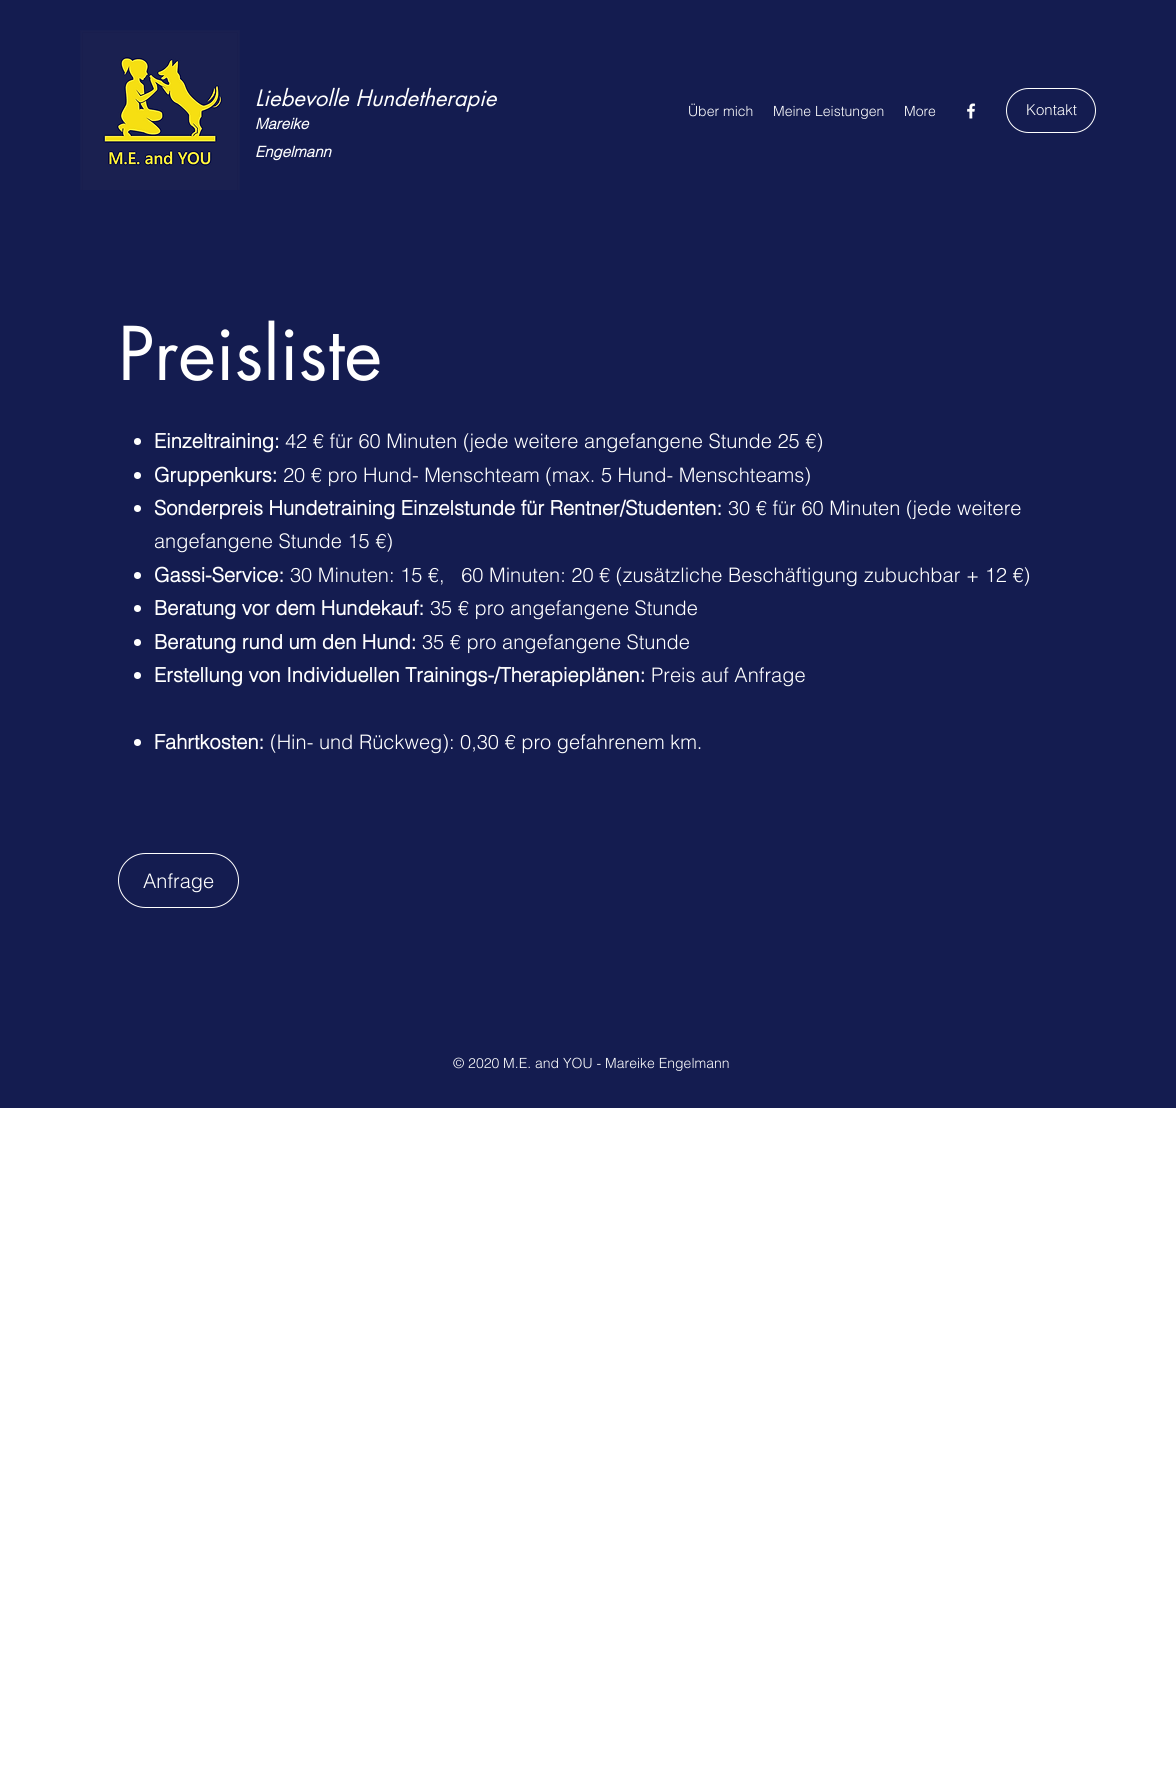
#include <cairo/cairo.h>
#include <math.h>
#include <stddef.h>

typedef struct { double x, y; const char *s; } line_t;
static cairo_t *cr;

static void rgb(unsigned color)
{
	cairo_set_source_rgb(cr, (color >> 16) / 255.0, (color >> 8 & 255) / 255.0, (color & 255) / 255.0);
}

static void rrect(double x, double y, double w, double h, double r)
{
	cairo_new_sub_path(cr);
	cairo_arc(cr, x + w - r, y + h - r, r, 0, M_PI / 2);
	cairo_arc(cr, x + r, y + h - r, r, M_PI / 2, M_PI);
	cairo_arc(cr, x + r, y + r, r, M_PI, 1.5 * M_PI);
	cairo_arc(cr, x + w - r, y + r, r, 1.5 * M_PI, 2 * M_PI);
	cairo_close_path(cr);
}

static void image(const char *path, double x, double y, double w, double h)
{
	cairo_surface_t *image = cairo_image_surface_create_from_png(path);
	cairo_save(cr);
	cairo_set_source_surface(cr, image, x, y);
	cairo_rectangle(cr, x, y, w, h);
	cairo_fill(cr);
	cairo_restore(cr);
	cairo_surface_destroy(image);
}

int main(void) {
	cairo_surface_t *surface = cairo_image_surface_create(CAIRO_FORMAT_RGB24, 1176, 1780);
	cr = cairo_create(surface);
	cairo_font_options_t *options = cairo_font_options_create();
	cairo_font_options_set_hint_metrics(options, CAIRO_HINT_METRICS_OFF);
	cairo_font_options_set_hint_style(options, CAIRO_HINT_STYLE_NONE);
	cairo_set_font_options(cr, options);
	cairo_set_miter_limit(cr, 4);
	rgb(0xffffff);
	cairo_paint(cr);
	rgb(0x141c50);
	cairo_rectangle(cr, 0, 0, 1176, 1108);
	cairo_fill(cr);
	image("img/1.png", 80, 30, 160, 160);
	image("img/2.png", 967, 103, 9, 16);
	rrect(1006.5, 88.5, 89, 44, 22);
	rgb(0xffffff);
	cairo_set_line_width(cr, 1);
	cairo_stroke(cr);
	cairo_arc(cr, 137.5, 441.5, 3.5, 0, 2 * M_PI);
	cairo_fill(cr);
	cairo_arc(cr, 137.5, 475.5, 3.5, 0, 2 * M_PI);
	cairo_fill(cr);
	cairo_arc(cr, 137.5, 508.5, 3.5, 0, 2 * M_PI);
	cairo_fill(cr);
	cairo_arc(cr, 137.5, 575.5, 3.5, 0, 2 * M_PI);
	cairo_fill(cr);
	cairo_arc(cr, 137.5, 608.5, 3.5, 0, 2 * M_PI);
	cairo_fill(cr);
	cairo_arc(cr, 137.5, 642.5, 3.5, 0, 2 * M_PI);
	cairo_fill(cr);
	cairo_arc(cr, 137.5, 675.5, 3.5, 0, 2 * M_PI);
	cairo_fill(cr);
	cairo_arc(cr, 137.5, 742.5, 3.5, 0, 2 * M_PI);
	cairo_fill(cr);
	rrect(118.5, 853.5, 120, 54, 27);
	cairo_stroke(cr);
	cairo_select_font_face(cr, "futura", CAIRO_FONT_SLANT_ITALIC, CAIRO_FONT_WEIGHT_NORMAL);
	cairo_set_font_size(cr, 22);
	cairo_move_to(cr, 255, 106);
	cairo_show_text(cr, "Liebevolle Hundetherapie");
	cairo_select_font_face(cr, "helvetica", CAIRO_FONT_SLANT_ITALIC, CAIRO_FONT_WEIGHT_BOLD);
	cairo_set_font_size(cr, 15);
	cairo_move_to(cr, 255, 129);
	cairo_show_text(cr, "Mareike");
	cairo_move_to(cr, 255, 157);
	cairo_show_text(cr, "Engelmann");
	cairo_select_font_face(cr, "helvetica Light", CAIRO_FONT_SLANT_NORMAL, CAIRO_FONT_WEIGHT_NORMAL);
	cairo_set_font_size(cr, 14);
	{
		static const line_t items[] = {
			{688, 116, "Über mich"},
			{773, 116, "Meine Leistungen"},
			{904, 116, "More"},
		};
		for (size_t i = 0; i < sizeof items / sizeof *items; i++) {
			cairo_move_to(cr, items[i].x, items[i].y);
			cairo_show_text(cr, items[i].s);
		}
	}
	cairo_set_font_size(cr, 15);
	cairo_move_to(cr, 1026, 115);
	cairo_show_text(cr, "Kontakt");
	cairo_select_font_face(cr, "futura", CAIRO_FONT_SLANT_NORMAL, CAIRO_FONT_WEIGHT_NORMAL);
	cairo_set_font_size(cr, 72);
	cairo_move_to(cr, 118, 380);
	cairo_show_text(cr, "Preisliste");
	cairo_select_font_face(cr, "helvetica", CAIRO_FONT_SLANT_NORMAL, CAIRO_FONT_WEIGHT_BOLD);
	cairo_set_font_size(cr, 20);
	cairo_move_to(cr, 154, 448);
	cairo_show_text(cr, "Einzeltraining:");
	cairo_select_font_face(cr, "helvetica Light", CAIRO_FONT_SLANT_NORMAL, CAIRO_FONT_WEIGHT_NORMAL);
	cairo_move_to(cr, 285, 448);
	cairo_show_text(cr, "42 € für 60 Minuten (jede weitere angefangene Stunde 25 €)");
	cairo_select_font_face(cr, "helvetica", CAIRO_FONT_SLANT_NORMAL, CAIRO_FONT_WEIGHT_BOLD);
	cairo_move_to(cr, 154, 482);
	cairo_show_text(cr, "Gruppenkurs:");
	cairo_select_font_face(cr, "helvetica Light", CAIRO_FONT_SLANT_NORMAL, CAIRO_FONT_WEIGHT_NORMAL);
	cairo_move_to(cr, 283, 482);
	cairo_show_text(cr, "20 € pro Hund- Menschteam (max. 5 Hund- Menschteams)");
	cairo_select_font_face(cr, "helvetica", CAIRO_FONT_SLANT_NORMAL, CAIRO_FONT_WEIGHT_BOLD);
	cairo_move_to(cr, 154, 515);
	cairo_show_text(cr, "Sonderpreis Hundetraining Einzelstunde für Rentner/Studenten:");
	cairo_select_font_face(cr, "helvetica Light", CAIRO_FONT_SLANT_NORMAL, CAIRO_FONT_WEIGHT_NORMAL);
	cairo_move_to(cr, 728, 515);
	cairo_show_text(cr, "30 € für 60 Minuten (jede weitere");
	cairo_move_to(cr, 154, 548);
	cairo_show_text(cr, "angefangene Stunde 15 €)");
	cairo_select_font_face(cr, "helvetica", CAIRO_FONT_SLANT_NORMAL, CAIRO_FONT_WEIGHT_BOLD);
	cairo_move_to(cr, 154, 582);
	cairo_show_text(cr, "Gassi-Service:");
	cairo_select_font_face(cr, "helvetica Light", CAIRO_FONT_SLANT_NORMAL, CAIRO_FONT_WEIGHT_NORMAL);
	cairo_move_to(cr, 290, 582);
	cairo_show_text(cr, "30 Minuten: 15 €,   60 Minuten: 20 € (zusätzliche Beschäftigung zubuchbar + 12 €)");
	cairo_select_font_face(cr, "helvetica", CAIRO_FONT_SLANT_NORMAL, CAIRO_FONT_WEIGHT_BOLD);
	cairo_move_to(cr, 154, 615);
	cairo_show_text(cr, "Beratung vor dem Hundekauf:");
	cairo_select_font_face(cr, "helvetica Light", CAIRO_FONT_SLANT_NORMAL, CAIRO_FONT_WEIGHT_NORMAL);
	cairo_move_to(cr, 430, 615);
	cairo_show_text(cr, "35 € pro angefangene Stunde");
	cairo_select_font_face(cr, "helvetica", CAIRO_FONT_SLANT_NORMAL, CAIRO_FONT_WEIGHT_BOLD);
	cairo_move_to(cr, 154, 649);
	cairo_show_text(cr, "Beratung rund um den Hund:");
	cairo_select_font_face(cr, "helvetica Light", CAIRO_FONT_SLANT_NORMAL, CAIRO_FONT_WEIGHT_NORMAL);
	cairo_move_to(cr, 422, 649);
	cairo_show_text(cr, "35 € pro angefangene Stunde");
	cairo_select_font_face(cr, "helvetica", CAIRO_FONT_SLANT_NORMAL, CAIRO_FONT_WEIGHT_BOLD);
	cairo_move_to(cr, 154, 682);
	cairo_show_text(cr, "Erstellung von Individuellen Trainings-/Therapieplänen:");
	cairo_select_font_face(cr, "helvetica Light", CAIRO_FONT_SLANT_NORMAL, CAIRO_FONT_WEIGHT_NORMAL);
	cairo_move_to(cr, 651, 682);
	cairo_show_text(cr, "Preis auf Anfrage");
	cairo_select_font_face(cr, "helvetica", CAIRO_FONT_SLANT_NORMAL, CAIRO_FONT_WEIGHT_BOLD);
	cairo_move_to(cr, 154, 749);
	cairo_show_text(cr, "Fahrtkosten:");
	cairo_select_font_face(cr, "helvetica Light", CAIRO_FONT_SLANT_NORMAL, CAIRO_FONT_WEIGHT_NORMAL);
	cairo_move_to(cr, 270, 749);
	cairo_show_text(cr, "(Hin- und Rückweg): 0,30 € pro gefahrenem km.");
	cairo_move_to(cr, 143, 888);
	cairo_show_text(cr, "Anfrage");
	cairo_set_font_size(cr, 14);
	cairo_move_to(cr, 453, 1068);
	cairo_show_text(cr, "© 2020 M.E. and YOU - Mareike Engelmann");
	cairo_surface_write_to_png(surface, "page.png");
	cairo_font_options_destroy(options);
	cairo_destroy(cr);
	cairo_surface_destroy(surface);
	return 0;
}
